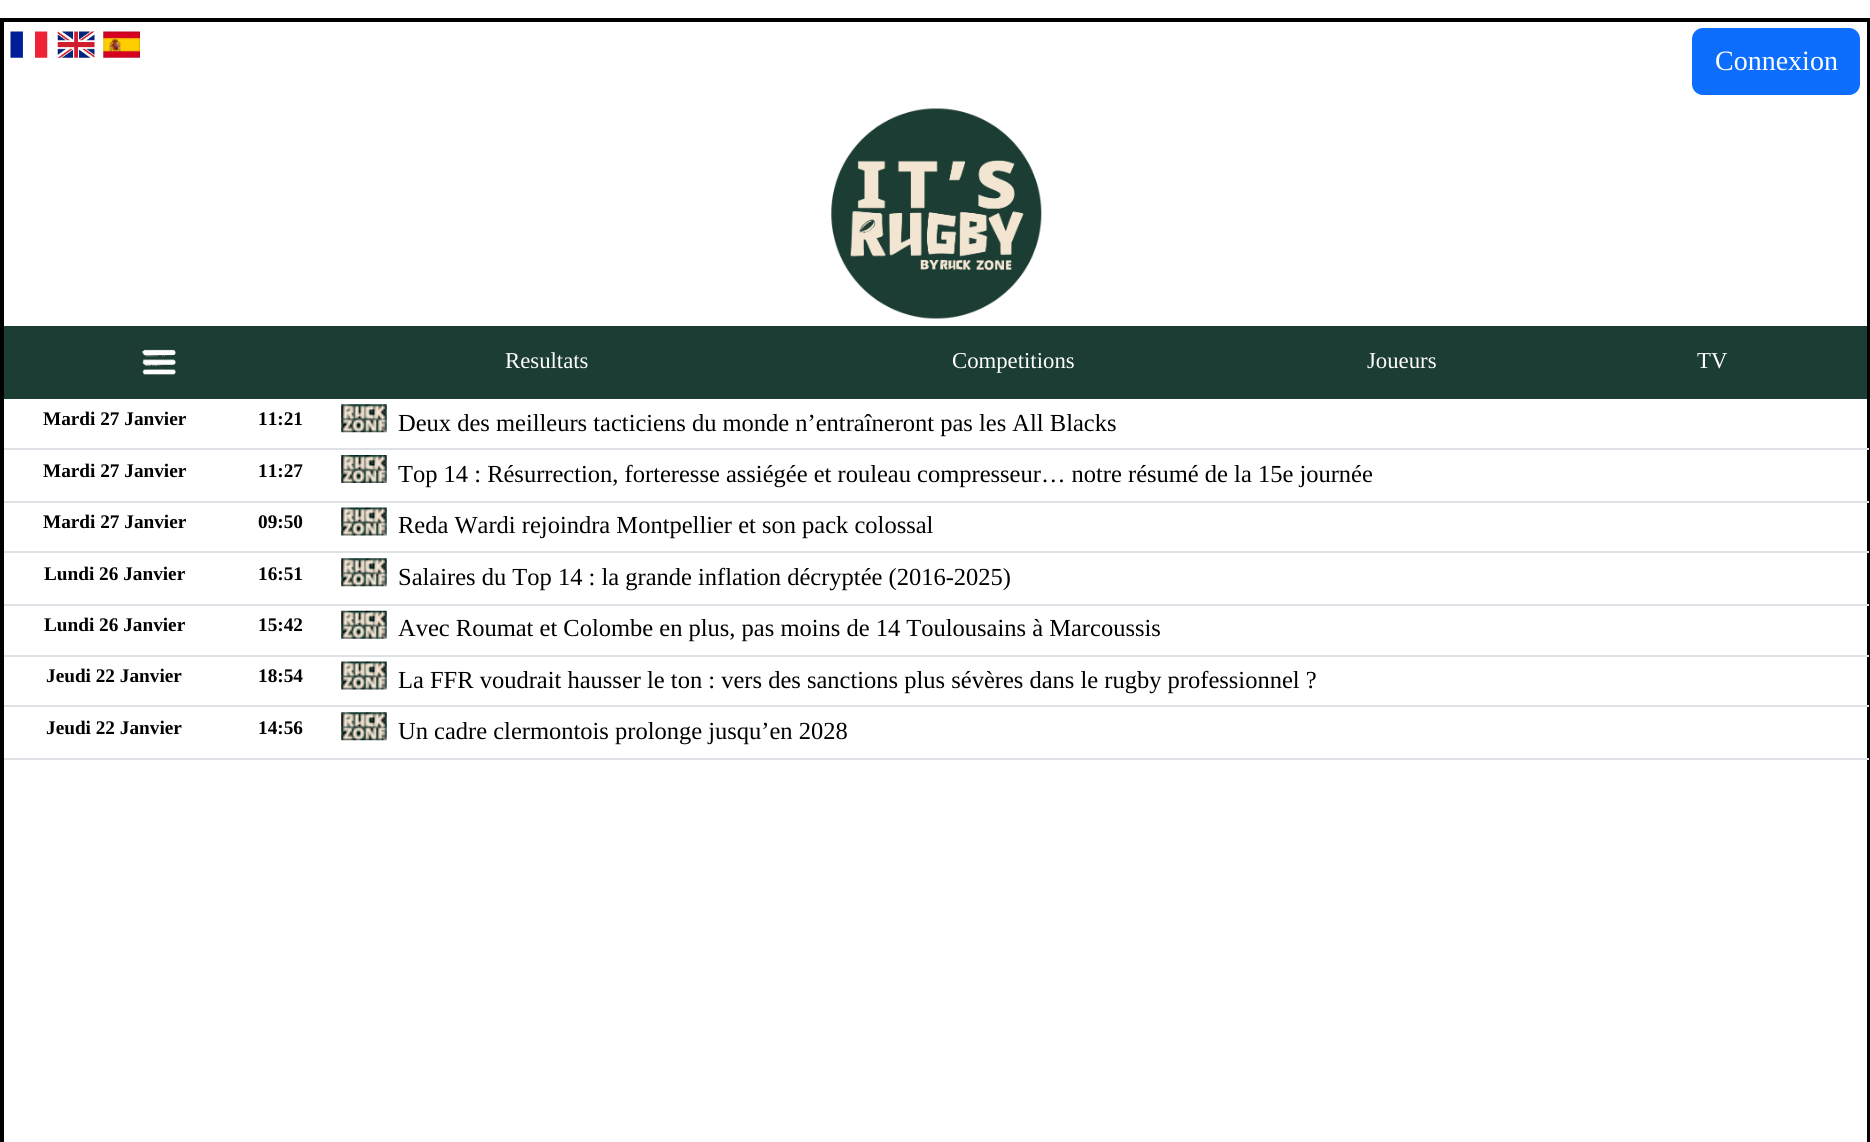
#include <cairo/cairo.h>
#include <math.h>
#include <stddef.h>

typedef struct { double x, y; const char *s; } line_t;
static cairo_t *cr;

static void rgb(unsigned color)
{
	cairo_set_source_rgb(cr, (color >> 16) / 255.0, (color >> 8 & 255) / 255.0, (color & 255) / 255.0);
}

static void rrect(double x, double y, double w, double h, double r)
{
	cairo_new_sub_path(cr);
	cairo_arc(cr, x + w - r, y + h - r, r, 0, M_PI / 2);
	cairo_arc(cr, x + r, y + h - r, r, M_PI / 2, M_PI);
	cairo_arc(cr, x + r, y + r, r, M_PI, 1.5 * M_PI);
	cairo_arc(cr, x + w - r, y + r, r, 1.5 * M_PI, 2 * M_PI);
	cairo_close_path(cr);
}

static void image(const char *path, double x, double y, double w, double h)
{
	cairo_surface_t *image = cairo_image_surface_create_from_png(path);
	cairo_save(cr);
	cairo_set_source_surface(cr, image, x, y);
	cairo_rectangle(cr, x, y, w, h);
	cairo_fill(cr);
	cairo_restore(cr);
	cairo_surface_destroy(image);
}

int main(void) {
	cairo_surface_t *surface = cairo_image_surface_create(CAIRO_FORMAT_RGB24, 1870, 1142);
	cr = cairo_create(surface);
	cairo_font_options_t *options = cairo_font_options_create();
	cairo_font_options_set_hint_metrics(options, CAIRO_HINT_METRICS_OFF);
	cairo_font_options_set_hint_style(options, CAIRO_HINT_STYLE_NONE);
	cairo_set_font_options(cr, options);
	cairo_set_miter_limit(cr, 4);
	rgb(0xffffff);
	cairo_paint(cr);
	cairo_rectangle(cr, 2, 20, 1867, 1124);
	rgb(0x000000);
	cairo_set_line_width(cr, 4);
	cairo_stroke(cr);
	image("img/1.png", 10, 31, 38, 27);
	image("img/2.png", 57, 31, 38, 27);
	image("img/3.png", 103, 31, 37, 27);
	rgb(0x0d6efd);
	rrect(1693, 29, 166, 65, 10);
	cairo_fill_preserve(cr);
	cairo_set_line_width(cr, 2);
	cairo_stroke(cr);
	image("img/4.png", 831, 108, 211, 211);
	rgb(0x1c3d34);
	cairo_rectangle(cr, 4, 326, 1863, 73);
	cairo_fill(cr);
	image("img/5.png", 141, 349, 35, 26);
	image("img/6.png", 341, 404, 46, 29);
	rgb(0xdee2e6);
	cairo_rectangle(cr, 4, 448, 1865, 2);
	cairo_fill(cr);
	image("img/7.png", 341, 455, 46, 28);
	cairo_rectangle(cr, 4, 501, 1865, 2);
	cairo_fill(cr);
	image("img/8.png", 341, 507, 46, 29);
	cairo_rectangle(cr, 4, 551, 1865, 2);
	cairo_fill(cr);
	image("img/6.png", 341, 558, 46, 29);
	cairo_rectangle(cr, 4, 604, 1865, 2);
	cairo_fill(cr);
	image("img/9.png", 341, 610, 46, 29);
	cairo_rectangle(cr, 4, 655, 1865, 2);
	cairo_fill(cr);
	image("img/8.png", 341, 661, 46, 29);
	cairo_rectangle(cr, 4, 705, 1865, 2);
	cairo_fill(cr);
	image("img/6.png", 341, 712, 46, 29);
	cairo_rectangle(cr, 4, 758, 1865, 2);
	cairo_fill(cr);
	cairo_select_font_face(cr, "Liberation Serif", CAIRO_FONT_SLANT_NORMAL, CAIRO_FONT_WEIGHT_NORMAL);
	cairo_set_font_size(cr, 28);
	rgb(0xffffff);
	cairo_move_to(cr, 1715, 70);
	cairo_show_text(cr, "Connexion");
	cairo_set_font_size(cr, 22.75);
	{
		static const line_t items[] = {
			{505, 368, "Resultats"},
			{952, 368, "Competitions"},
			{1367, 368, "Joueurs"},
			{1697, 368, "TV"},
		};
		for (size_t i = 0; i < sizeof items / sizeof *items; i++) {
			cairo_move_to(cr, items[i].x, items[i].y);
			cairo_show_text(cr, items[i].s);
		}
	}
	cairo_select_font_face(cr, "Liberation Serif", CAIRO_FONT_SLANT_NORMAL, CAIRO_FONT_WEIGHT_BOLD);
	cairo_set_font_size(cr, 19.25);
	rgb(0x000000);
	cairo_move_to(cr, 43, 425);
	cairo_show_text(cr, "Mardi 27 Janvier");
	cairo_move_to(cr, 258, 425);
	cairo_show_text(cr, "11:21");
	cairo_select_font_face(cr, "Liberation Serif", CAIRO_FONT_SLANT_NORMAL, CAIRO_FONT_WEIGHT_NORMAL);
	cairo_set_font_size(cr, 24.5);
	cairo_move_to(cr, 398, 431);
	cairo_show_text(cr, "Deux des meilleurs tacticiens du monde n’entraîneront pas les All Blacks");
	cairo_select_font_face(cr, "Liberation Serif", CAIRO_FONT_SLANT_NORMAL, CAIRO_FONT_WEIGHT_BOLD);
	cairo_set_font_size(cr, 19.25);
	cairo_move_to(cr, 43, 477);
	cairo_show_text(cr, "Mardi 27 Janvier");
	cairo_move_to(cr, 258, 477);
	cairo_show_text(cr, "11:27");
	cairo_select_font_face(cr, "Liberation Serif", CAIRO_FONT_SLANT_NORMAL, CAIRO_FONT_WEIGHT_NORMAL);
	cairo_set_font_size(cr, 24.5);
	cairo_move_to(cr, 398, 482);
	cairo_show_text(cr, "Top 14 : Résurrection, forteresse assiégée et rouleau compresseur… notre résumé de la 15e journée");
	cairo_select_font_face(cr, "Liberation Serif", CAIRO_FONT_SLANT_NORMAL, CAIRO_FONT_WEIGHT_BOLD);
	cairo_set_font_size(cr, 19.25);
	cairo_move_to(cr, 43, 528);
	cairo_show_text(cr, "Mardi 27 Janvier");
	cairo_move_to(cr, 258, 528);
	cairo_show_text(cr, "09:50");
	cairo_select_font_face(cr, "Liberation Serif", CAIRO_FONT_SLANT_NORMAL, CAIRO_FONT_WEIGHT_NORMAL);
	cairo_set_font_size(cr, 24.5);
	cairo_move_to(cr, 398, 533);
	cairo_show_text(cr, "Reda Wardi rejoindra Montpellier et son pack colossal");
	cairo_select_font_face(cr, "Liberation Serif", CAIRO_FONT_SLANT_NORMAL, CAIRO_FONT_WEIGHT_BOLD);
	cairo_set_font_size(cr, 19.25);
	cairo_move_to(cr, 44, 580);
	cairo_show_text(cr, "Lundi 26 Janvier");
	cairo_move_to(cr, 258, 580);
	cairo_show_text(cr, "16:51");
	cairo_select_font_face(cr, "Liberation Serif", CAIRO_FONT_SLANT_NORMAL, CAIRO_FONT_WEIGHT_NORMAL);
	cairo_set_font_size(cr, 24.5);
	cairo_move_to(cr, 398, 585);
	cairo_show_text(cr, "Salaires du Top 14 : la grande inflation décryptée (2016-2025)");
	cairo_select_font_face(cr, "Liberation Serif", CAIRO_FONT_SLANT_NORMAL, CAIRO_FONT_WEIGHT_BOLD);
	cairo_set_font_size(cr, 19.25);
	cairo_move_to(cr, 44, 631);
	cairo_show_text(cr, "Lundi 26 Janvier");
	cairo_move_to(cr, 258, 631);
	cairo_show_text(cr, "15:42");
	cairo_select_font_face(cr, "Liberation Serif", CAIRO_FONT_SLANT_NORMAL, CAIRO_FONT_WEIGHT_NORMAL);
	cairo_set_font_size(cr, 24.5);
	cairo_move_to(cr, 398, 636);
	cairo_show_text(cr, "Avec Roumat et Colombe en plus, pas moins de 14 Toulousains à Marcoussis");
	cairo_select_font_face(cr, "Liberation Serif", CAIRO_FONT_SLANT_NORMAL, CAIRO_FONT_WEIGHT_BOLD);
	cairo_set_font_size(cr, 19.25);
	cairo_move_to(cr, 46, 682);
	cairo_show_text(cr, "Jeudi 22 Janvier");
	cairo_move_to(cr, 258, 682);
	cairo_show_text(cr, "18:54");
	cairo_select_font_face(cr, "Liberation Serif", CAIRO_FONT_SLANT_NORMAL, CAIRO_FONT_WEIGHT_NORMAL);
	cairo_set_font_size(cr, 24.5);
	cairo_move_to(cr, 398, 688);
	cairo_show_text(cr, "La FFR voudrait hausser le ton : vers des sanctions plus sévères dans le rugby professionnel ?");
	cairo_select_font_face(cr, "Liberation Serif", CAIRO_FONT_SLANT_NORMAL, CAIRO_FONT_WEIGHT_BOLD);
	cairo_set_font_size(cr, 19.25);
	cairo_move_to(cr, 46, 734);
	cairo_show_text(cr, "Jeudi 22 Janvier");
	cairo_move_to(cr, 258, 734);
	cairo_show_text(cr, "14:56");
	cairo_select_font_face(cr, "Liberation Serif", CAIRO_FONT_SLANT_NORMAL, CAIRO_FONT_WEIGHT_NORMAL);
	cairo_set_font_size(cr, 24.5);
	cairo_move_to(cr, 398, 739);
	cairo_show_text(cr, "Un cadre clermontois prolonge jusqu’en 2028");
	cairo_surface_write_to_png(surface, "page.png");
	cairo_font_options_destroy(options);
	cairo_destroy(cr);
	cairo_surface_destroy(surface);
	return 0;
}
